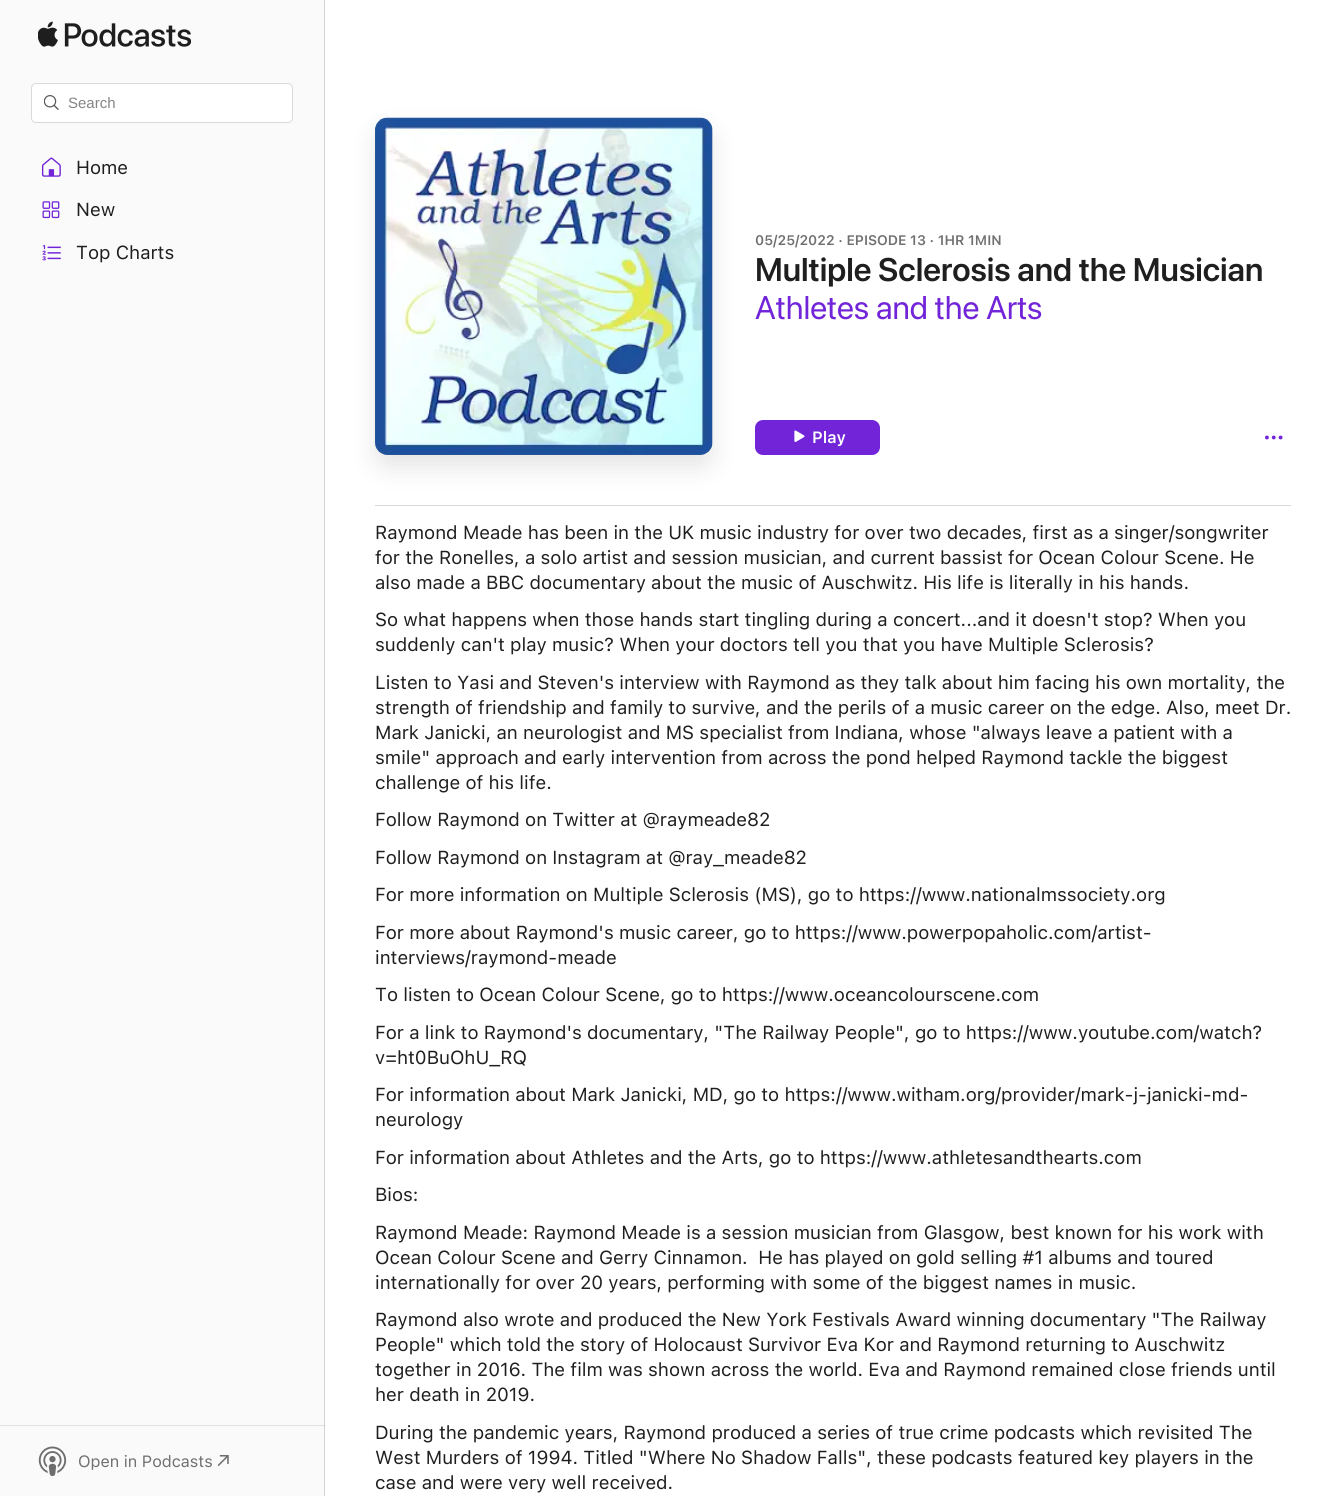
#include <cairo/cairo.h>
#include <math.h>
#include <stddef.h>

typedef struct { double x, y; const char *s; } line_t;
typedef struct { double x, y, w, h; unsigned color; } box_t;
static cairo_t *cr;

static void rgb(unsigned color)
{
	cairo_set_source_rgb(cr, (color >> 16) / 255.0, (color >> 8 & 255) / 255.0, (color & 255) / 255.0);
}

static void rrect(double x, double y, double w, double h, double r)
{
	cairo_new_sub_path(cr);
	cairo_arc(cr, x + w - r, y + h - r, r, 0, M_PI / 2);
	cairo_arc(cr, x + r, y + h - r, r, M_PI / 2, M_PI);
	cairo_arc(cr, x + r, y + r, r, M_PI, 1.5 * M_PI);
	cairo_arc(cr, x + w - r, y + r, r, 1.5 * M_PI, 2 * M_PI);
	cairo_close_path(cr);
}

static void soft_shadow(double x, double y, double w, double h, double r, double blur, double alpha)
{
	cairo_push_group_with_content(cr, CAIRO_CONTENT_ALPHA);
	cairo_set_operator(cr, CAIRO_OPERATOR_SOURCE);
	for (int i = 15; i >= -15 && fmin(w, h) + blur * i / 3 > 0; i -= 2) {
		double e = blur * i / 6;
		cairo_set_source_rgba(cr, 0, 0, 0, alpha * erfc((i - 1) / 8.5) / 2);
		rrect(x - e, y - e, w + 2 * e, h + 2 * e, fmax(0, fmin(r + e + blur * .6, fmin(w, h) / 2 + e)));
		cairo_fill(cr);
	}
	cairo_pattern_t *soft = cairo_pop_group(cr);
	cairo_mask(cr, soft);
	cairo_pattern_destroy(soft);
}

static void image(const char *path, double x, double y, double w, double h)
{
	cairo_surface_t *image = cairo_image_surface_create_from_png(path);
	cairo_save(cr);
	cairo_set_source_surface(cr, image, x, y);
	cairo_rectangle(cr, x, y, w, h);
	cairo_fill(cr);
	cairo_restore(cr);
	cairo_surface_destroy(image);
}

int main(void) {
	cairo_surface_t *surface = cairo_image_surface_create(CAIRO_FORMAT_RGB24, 1341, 1496);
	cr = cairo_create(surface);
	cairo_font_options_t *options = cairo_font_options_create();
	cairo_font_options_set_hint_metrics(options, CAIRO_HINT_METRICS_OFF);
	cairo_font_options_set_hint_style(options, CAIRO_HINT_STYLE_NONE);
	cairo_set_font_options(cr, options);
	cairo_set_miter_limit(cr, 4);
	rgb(0xffffff);
	cairo_paint(cr);
	{
		static const box_t items[] = {
			{0, 0, 324, 1496, 0xfafafa},
			{0, 1425, 325, 1, 0xe1e1e1},
			{324, 0, 1, 1496, 0xd5d5d5},
			{324, 1425, 1, 1, 0xc0c0c0},
		};
		for (size_t i = 0; i < sizeof items / sizeof *items; i++) {
			rgb(items[i].color);
			cairo_rectangle(cr, items[i].x, items[i].y, items[i].w, items[i].h);
			cairo_fill(cr);
		}
	}
	image("img/1.png", 38, 21, 153, 26);
	rgb(0xffffff);
	rrect(31.5, 83.5, 261, 39, 4.5);
	cairo_fill_preserve(cr);
	rgb(0xd9d9d9);
	cairo_set_line_width(cr, 1);
	cairo_stroke(cr);
	image("img/2.png", 44, 95, 15, 15);
	image("img/3.png", 41, 157, 20, 20);
	image("img/4.png", 42, 201, 18, 18);
	image("img/5.png", 42, 245, 19, 16);
	image("img/6.png", 38, 1446, 29, 30);
	image("img/7.png", 218, 1455, 11, 11);
	cairo_rectangle(cr, 375, 505, 916, 1);
	cairo_fill(cr);
	rgb(0x000000);
	soft_shadow(375, 130, 338, 338, 13, 12.5, 0.1);
	image("img/8.png", 375, 117, 338, 338);
	rrect(375.5, 118.5, 337, 336, 12.5);
	cairo_set_source_rgba(cr, 0.502, 0.502, 0.502, 0.1);
	cairo_stroke(cr);
	rgb(0x7224d8);
	rrect(755, 420, 125, 35, 8);
	cairo_fill(cr);
	image("img/9.png", 794, 430, 11, 12);
	image("img/10.png", 1265, 435, 18, 5);
	cairo_select_font_face(cr, "Liberation Sans", CAIRO_FONT_SLANT_NORMAL, CAIRO_FONT_WEIGHT_NORMAL);
	cairo_set_font_size(cr, 15);
	rgb(0x858585);
	cairo_move_to(cr, 68, 108);
	cairo_show_text(cr, "Search");
	cairo_select_font_face(cr, "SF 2", CAIRO_FONT_SLANT_NORMAL, CAIRO_FONT_WEIGHT_NORMAL);
	cairo_set_font_size(cr, 18.75);
	rgb(0x1f1f1f);
	{
		static const line_t items[] = {
			{76, 174, "Home"},
			{76, 216, "New"},
			{76, 259, "Top Charts"},
		};
		for (size_t i = 0; i < sizeof items / sizeof *items; i++) {
			cairo_move_to(cr, items[i].x, items[i].y);
			cairo_show_text(cr, items[i].s);
		}
	}
	cairo_set_font_size(cr, 16.25);
	rgb(0x707070);
	cairo_move_to(cr, 78, 1467);
	cairo_show_text(cr, "Open in Podcasts");
	cairo_select_font_face(cr, "SF SemiBold", CAIRO_FONT_SLANT_NORMAL, CAIRO_FONT_WEIGHT_NORMAL);
	cairo_set_font_size(cr, 13.75);
	cairo_move_to(cr, 755, 245);
	cairo_show_text(cr, "05/25/2022 · EPISODE 13 · 1HR 1MIN");
	cairo_select_font_face(cr, "SF 2 SemiBold", CAIRO_FONT_SLANT_NORMAL, CAIRO_FONT_WEIGHT_NORMAL);
	cairo_set_font_size(cr, 32.5);
	rgb(0x1f1f1f);
	cairo_move_to(cr, 755, 281);
	cairo_show_text(cr, "Multiple Sclerosis and the Musician");
	cairo_select_font_face(cr, "SF", CAIRO_FONT_SLANT_NORMAL, CAIRO_FONT_WEIGHT_NORMAL);
	rgb(0x7224d8);
	cairo_move_to(cr, 755, 319);
	cairo_show_text(cr, "Athletes and the Arts");
	cairo_select_font_face(cr, "SF SemiBold", CAIRO_FONT_SLANT_NORMAL, CAIRO_FONT_WEIGHT_NORMAL);
	cairo_set_font_size(cr, 16.25);
	rgb(0xffffff);
	cairo_move_to(cr, 812, 443);
	cairo_show_text(cr, "Play");
	cairo_select_font_face(cr, "SF 2", CAIRO_FONT_SLANT_NORMAL, CAIRO_FONT_WEIGHT_NORMAL);
	cairo_set_font_size(cr, 18.75);
	rgb(0x1f1f1f);
	{
		static const line_t items[] = {
			{375, 539, "Raymond Meade has been in the UK music industry for over two decades, first as a singer/songwriter"},
			{375, 564, "for the Ronelles, a solo artist and session musician, and current bassist for Ocean Colour Scene. He"},
			{375, 589, "also made a BBC documentary about the music of Auschwitz. His life is literally in his hands."},
			{375, 626, "So what happens when those hands start tingling during a concert...and it doesn't stop? When you"},
			{375, 651, "suddenly can't play music? When your doctors tell you that you have Multiple Sclerosis?"},
			{375, 689, "Listen to Yasi and Steven's interview with Raymond as they talk about him facing his own mortality, the"},
			{375, 714, "strength of friendship and family to survive, and the perils of a music career on the edge. Also, meet Dr."},
			{375, 739, "Mark Janicki, an neurologist and MS specialist from Indiana, whose \"always leave a patient with a"},
			{375, 764, "smile\" approach and early intervention from across the pond helped Raymond tackle the biggest"},
			{375, 789, "challenge of his life."},
			{375, 826, "Follow Raymond on Twitter at @raymeade82"},
			{375, 864, "Follow Raymond on Instagram at @ray_meade82"},
			{375, 901, "For more information on Multiple Sclerosis (MS), go to https://www.nationalmssociety.org"},
			{375, 939, "For more about Raymond's music career, go to https://www.powerpopaholic.com/artist-"},
			{375, 964, "interviews/raymond-meade"},
			{375, 1001, "To listen to Ocean Colour Scene, go to https://www.oceancolourscene.com"},
			{375, 1039, "For a link to Raymond's documentary, \"The Railway People\", go to https://www.youtube.com/watch?"},
			{375, 1064, "v=ht0BuOhU_RQ"},
			{375, 1101, "For information about Mark Janicki, MD, go to https://www.witham.org/provider/mark-j-janicki-md-"},
			{375, 1126, "neurology"},
			{375, 1164, "For information about Athletes and the Arts, go to https://www.athletesandthearts.com"},
			{375, 1201, "Bios:"},
			{375, 1239, "Raymond Meade: Raymond Meade is a session musician from Glasgow, best known for his work with"},
			{375, 1264, "Ocean Colour Scene and Gerry Cinnamon.  He has played on gold selling #1 albums and toured"},
			{375, 1289, "internationally for over 20 years, performing with some of the biggest names in music."},
			{375, 1326, "Raymond also wrote and produced the New York Festivals Award winning documentary \"The Railway"},
			{375, 1351, "People\" which told the story of Holocaust Survivor Eva Kor and Raymond returning to Auschwitz"},
			{375, 1376, "together in 2016. The film was shown across the world. Eva and Raymond remained close friends until"},
			{375, 1401, "her death in 2019."},
			{375, 1439, "During the pandemic years, Raymond produced a series of true crime podcasts which revisited The"},
			{375, 1464, "West Murders of 1994. Titled \"Where No Shadow Falls\", these podcasts featured key players in the"},
			{375, 1489, "case and were very well received."},
		};
		for (size_t i = 0; i < sizeof items / sizeof *items; i++) {
			cairo_move_to(cr, items[i].x, items[i].y);
			cairo_show_text(cr, items[i].s);
		}
	}
	cairo_surface_write_to_png(surface, "page.png");
	cairo_font_options_destroy(options);
	cairo_destroy(cr);
	cairo_surface_destroy(surface);
	return 0;
}
